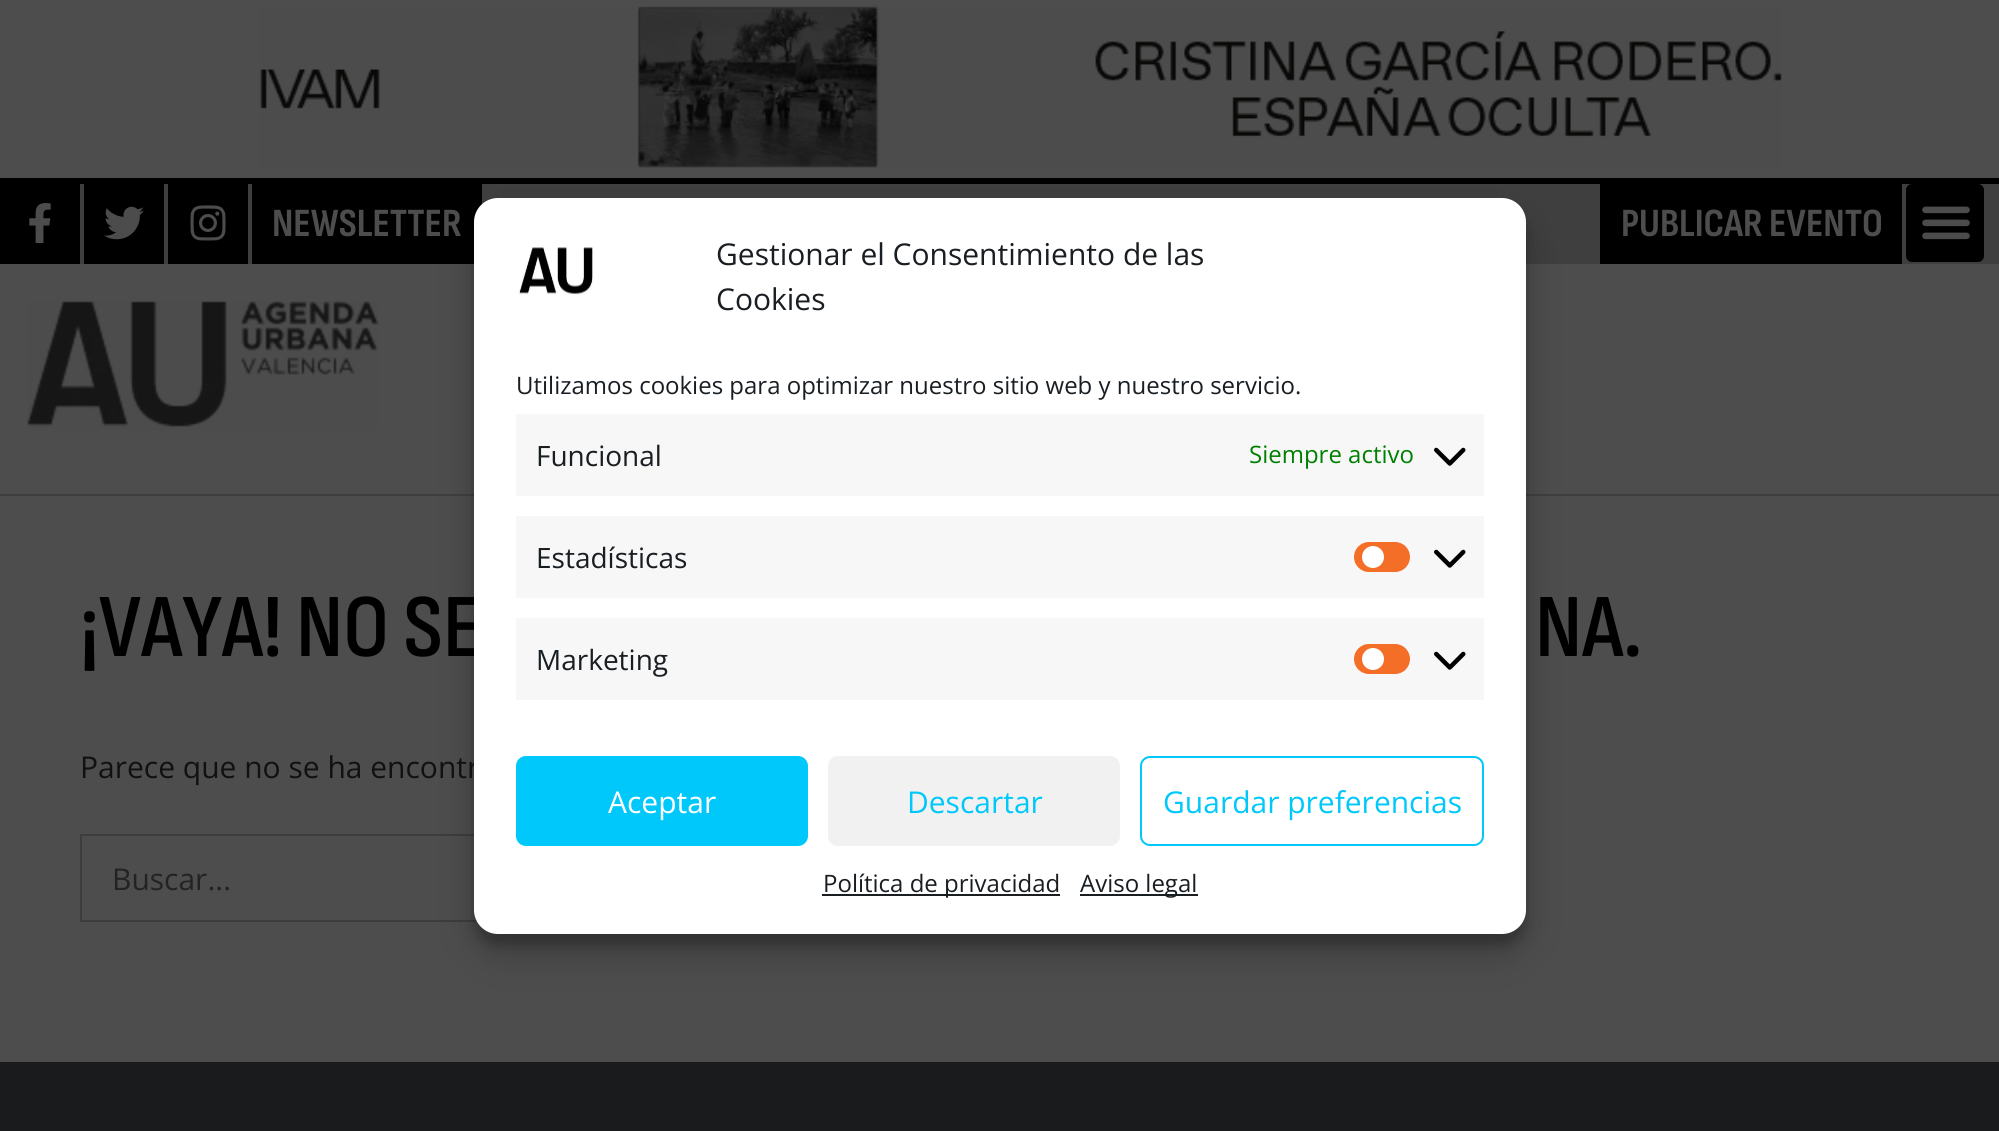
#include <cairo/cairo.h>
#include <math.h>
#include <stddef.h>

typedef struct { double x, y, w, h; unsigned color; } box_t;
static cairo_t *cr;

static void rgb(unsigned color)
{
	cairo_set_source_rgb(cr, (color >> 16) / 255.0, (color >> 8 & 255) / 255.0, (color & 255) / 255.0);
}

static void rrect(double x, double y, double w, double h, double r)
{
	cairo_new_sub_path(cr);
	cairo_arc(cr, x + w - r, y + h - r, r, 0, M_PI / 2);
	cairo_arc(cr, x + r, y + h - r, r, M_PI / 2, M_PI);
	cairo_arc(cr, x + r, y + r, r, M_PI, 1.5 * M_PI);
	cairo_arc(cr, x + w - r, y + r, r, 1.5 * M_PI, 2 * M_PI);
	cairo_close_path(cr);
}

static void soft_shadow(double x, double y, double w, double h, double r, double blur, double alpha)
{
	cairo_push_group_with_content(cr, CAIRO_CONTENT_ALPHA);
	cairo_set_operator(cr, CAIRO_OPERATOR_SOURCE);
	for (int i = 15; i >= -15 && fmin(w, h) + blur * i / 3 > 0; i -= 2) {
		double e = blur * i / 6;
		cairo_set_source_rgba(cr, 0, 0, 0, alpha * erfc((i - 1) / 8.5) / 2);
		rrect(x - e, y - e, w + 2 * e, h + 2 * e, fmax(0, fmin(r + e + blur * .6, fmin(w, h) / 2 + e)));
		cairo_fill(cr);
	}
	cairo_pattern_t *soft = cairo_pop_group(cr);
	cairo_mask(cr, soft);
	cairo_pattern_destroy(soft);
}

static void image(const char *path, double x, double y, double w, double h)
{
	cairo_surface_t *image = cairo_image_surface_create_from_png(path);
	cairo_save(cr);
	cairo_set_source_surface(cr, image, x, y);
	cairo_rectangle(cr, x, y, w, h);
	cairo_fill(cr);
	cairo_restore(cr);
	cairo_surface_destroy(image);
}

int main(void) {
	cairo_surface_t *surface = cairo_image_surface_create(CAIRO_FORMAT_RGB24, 1999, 1131);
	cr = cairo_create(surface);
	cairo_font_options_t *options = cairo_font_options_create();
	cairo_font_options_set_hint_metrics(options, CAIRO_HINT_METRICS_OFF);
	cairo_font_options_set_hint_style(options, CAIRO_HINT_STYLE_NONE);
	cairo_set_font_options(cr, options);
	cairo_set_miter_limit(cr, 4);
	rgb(0x4d4d4d);
	cairo_paint(cr);
	image("img/1.png", 260, 6, 1522, 162);
	{
		static const box_t items[] = {
			{80, 184, 1919, 80, 0x3f3f3f},
			{0, 178, 1999, 6, 0x000000},
			{0, 184, 80, 80, 0x000000},
		};
		for (size_t i = 0; i < sizeof items / sizeof *items; i++) {
			rgb(items[i].color);
			cairo_rectangle(cr, items[i].x, items[i].y, items[i].w, items[i].h);
			cairo_fill(cr);
		}
	}
	image("img/2.png", 29, 203, 22, 40);
	cairo_rectangle(cr, 84, 184, 80, 80);
	cairo_fill(cr);
	image("img/3.png", 104, 206, 40, 34);
	cairo_rectangle(cr, 168, 184, 80, 80);
	cairo_fill(cr);
	image("img/4.png", 190, 205, 36, 36);
	cairo_rectangle(cr, 252, 184, 230, 80);
	cairo_fill(cr);
	cairo_rectangle(cr, 1600, 184, 302, 80);
	cairo_fill(cr);
	rrect(1906, 184, 78, 78, 6);
	cairo_fill(cr);
	image("img/5.png", 1922, 206, 48, 34);
	rgb(0x3f3f3f);
	cairo_rectangle(cr, 0, 494, 1999, 2);
	cairo_fill(cr);
	image("img/6.png", 27, 301, 352, 129);
	cairo_rectangle(cr, 81, 835, 456, 86);
	rgb(0x3d3d3d);
	cairo_stroke(cr);
	rgb(0x000000);
	soft_shadow(474, 210, 1052, 736, 24, 6, 0.23);
	soft_shadow(474, 218, 1052, 736, 24, 20, 0.19);
	rgb(0x191b1d);
	cairo_rectangle(cr, 0, 1062, 1999, 69);
	cairo_fill(cr);
	cairo_select_font_face(cr, "Sofia Sans Condensed", CAIRO_FONT_SLANT_NORMAL, CAIRO_FONT_WEIGHT_BOLD);
	cairo_set_font_size(cr, 40);
	rgb(0x4d4d4d);
	cairo_move_to(cr, 272, 236);
	cairo_show_text(cr, "NEWSLETTER");
	cairo_move_to(cr, 1621, 236);
	cairo_show_text(cr, "PUBLICAR EVENTO");
	cairo_select_font_face(cr, "Sofia Sans Condensed SemiBold", CAIRO_FONT_SLANT_NORMAL, CAIRO_FONT_WEIGHT_NORMAL);
	cairo_set_font_size(cr, 90);
	rgb(0x000000);
	cairo_move_to(cr, 80, 656);
	cairo_show_text(cr, "¡VAYA! NO SE");
	cairo_move_to(cr, 1535, 656);
	cairo_show_text(cr, "NA.");
	cairo_select_font_face(cr, "Open Sans", CAIRO_FONT_SLANT_NORMAL, CAIRO_FONT_WEIGHT_NORMAL);
	cairo_set_font_size(cr, 30);
	rgb(0x111111);
	cairo_move_to(cr, 80, 778);
	cairo_show_text(cr, "Parece que no se ha encontr");
	rgb(0xffffff);
	rrect(475, 199, 1050, 734, 23);
	cairo_fill_preserve(cr);
	cairo_stroke(cr);
	rgb(0xf7f7f7);
	cairo_rectangle(cr, 516, 618, 968, 82);
	cairo_fill(cr);
	image("img/8.png", 1434, 651, 32, 19);
	rgb(0xf56e28);
	rrect(1354, 644, 56, 30, 15);
	cairo_fill(cr);
	rgb(0xffffff);
	cairo_arc(cr, 1373, 659, 11, 0, 2 * M_PI);
	cairo_fill(cr);
	rgb(0xf7f7f7);
	cairo_rectangle(cr, 516, 516, 968, 82);
	cairo_fill(cr);
	image("img/8.png", 1434, 549, 32, 19);
	rgb(0xf56e28);
	rrect(1354, 542, 56, 30, 15);
	cairo_fill(cr);
	rgb(0xffffff);
	cairo_arc(cr, 1373, 557, 11, 0, 2 * M_PI);
	cairo_fill(cr);
	rgb(0xf7f7f7);
	cairo_rectangle(cr, 516, 414, 968, 82);
	cairo_fill(cr);
	image("img/8.png", 1434, 447, 32, 19);
	cairo_set_font_size(cr, 28);
	rgb(0x191e23);
	cairo_move_to(cr, 536, 670);
	cairo_show_text(cr, "Marketing");
	cairo_move_to(cr, 536, 568);
	cairo_show_text(cr, "Estadísticas");
	cairo_set_font_size(cr, 24);
	rgb(0x008000);
	cairo_move_to(cr, 1249, 463);
	cairo_show_text(cr, "Siempre activo");
	cairo_set_font_size(cr, 28);
	rgb(0x191e23);
	cairo_move_to(cr, 536, 466);
	cairo_show_text(cr, "Funcional");
	cairo_set_font_size(cr, 24);
	cairo_move_to(cr, 516, 394);
	cairo_show_text(cr, "Utilizamos cookies para optimizar nuestro sitio web y nuestro servicio.");
	cairo_rectangle(cr, 1080, 894, 118, 2);
	cairo_fill(cr);
	cairo_move_to(cr, 1080, 892);
	cairo_show_text(cr, "Aviso legal");
	cairo_rectangle(cr, 822, 894, 238, 2);
	cairo_fill(cr);
	cairo_move_to(cr, 823, 892);
	cairo_show_text(cr, "Política de privacidad");
	rrect(1141, 757, 342, 88, 9);
	rgb(0x00c8fa);
	cairo_stroke(cr);
	cairo_set_font_size(cr, 30);
	cairo_move_to(cr, 1163, 813);
	cairo_show_text(cr, "Guardar preferencias");
	rgb(0xf1f1f1);
	rrect(829, 757, 290, 88, 9);
	cairo_fill_preserve(cr);
	cairo_stroke(cr);
	rgb(0x00c8fa);
	cairo_move_to(cr, 907, 813);
	cairo_show_text(cr, "Descartar");
	rrect(517, 757, 290, 88, 9);
	cairo_fill_preserve(cr);
	cairo_stroke(cr);
	rgb(0xffffff);
	cairo_move_to(cr, 608, 813);
	cairo_show_text(cr, "Aceptar");
	rgb(0x191e23);
	cairo_move_to(cr, 716, 310);
	cairo_show_text(cr, "Cookies");
	cairo_move_to(cr, 716, 265);
	cairo_show_text(cr, "Gestionar el Consentimiento de las");
	image("img/7.png", 517, 247, 76, 48);
	rgb(0x232323);
	cairo_move_to(cr, 112, 890);
	cairo_show_text(cr, "Buscar...");
	cairo_surface_write_to_png(surface, "page.png");
	cairo_font_options_destroy(options);
	cairo_destroy(cr);
	cairo_surface_destroy(surface);
	return 0;
}
